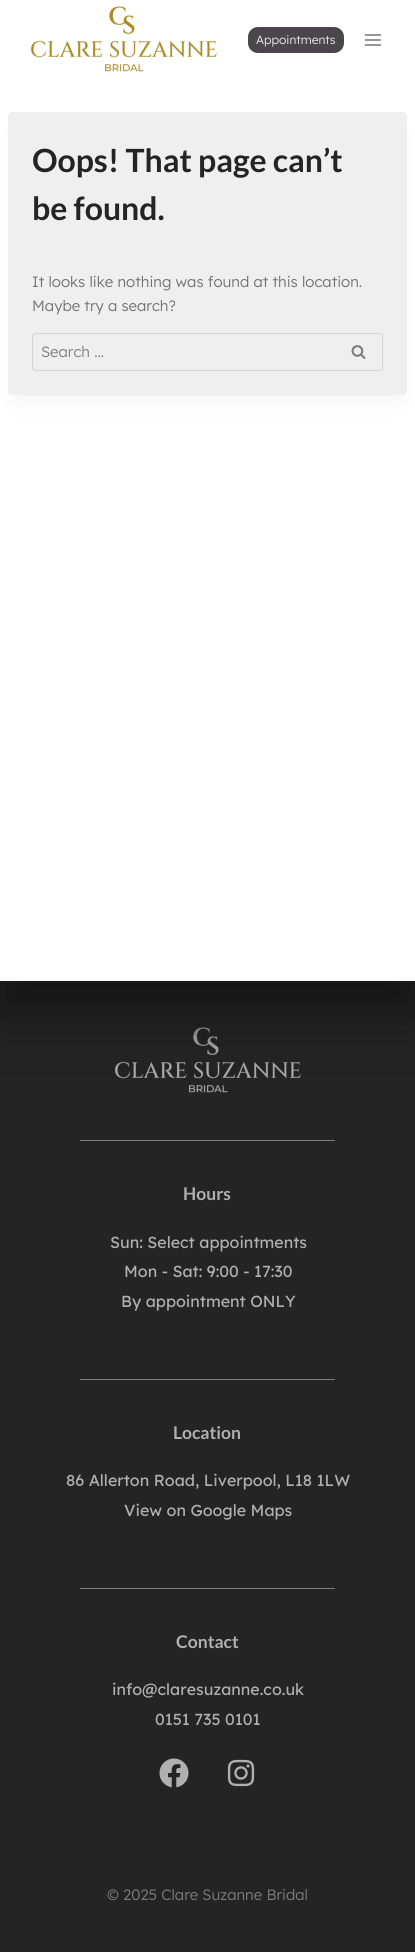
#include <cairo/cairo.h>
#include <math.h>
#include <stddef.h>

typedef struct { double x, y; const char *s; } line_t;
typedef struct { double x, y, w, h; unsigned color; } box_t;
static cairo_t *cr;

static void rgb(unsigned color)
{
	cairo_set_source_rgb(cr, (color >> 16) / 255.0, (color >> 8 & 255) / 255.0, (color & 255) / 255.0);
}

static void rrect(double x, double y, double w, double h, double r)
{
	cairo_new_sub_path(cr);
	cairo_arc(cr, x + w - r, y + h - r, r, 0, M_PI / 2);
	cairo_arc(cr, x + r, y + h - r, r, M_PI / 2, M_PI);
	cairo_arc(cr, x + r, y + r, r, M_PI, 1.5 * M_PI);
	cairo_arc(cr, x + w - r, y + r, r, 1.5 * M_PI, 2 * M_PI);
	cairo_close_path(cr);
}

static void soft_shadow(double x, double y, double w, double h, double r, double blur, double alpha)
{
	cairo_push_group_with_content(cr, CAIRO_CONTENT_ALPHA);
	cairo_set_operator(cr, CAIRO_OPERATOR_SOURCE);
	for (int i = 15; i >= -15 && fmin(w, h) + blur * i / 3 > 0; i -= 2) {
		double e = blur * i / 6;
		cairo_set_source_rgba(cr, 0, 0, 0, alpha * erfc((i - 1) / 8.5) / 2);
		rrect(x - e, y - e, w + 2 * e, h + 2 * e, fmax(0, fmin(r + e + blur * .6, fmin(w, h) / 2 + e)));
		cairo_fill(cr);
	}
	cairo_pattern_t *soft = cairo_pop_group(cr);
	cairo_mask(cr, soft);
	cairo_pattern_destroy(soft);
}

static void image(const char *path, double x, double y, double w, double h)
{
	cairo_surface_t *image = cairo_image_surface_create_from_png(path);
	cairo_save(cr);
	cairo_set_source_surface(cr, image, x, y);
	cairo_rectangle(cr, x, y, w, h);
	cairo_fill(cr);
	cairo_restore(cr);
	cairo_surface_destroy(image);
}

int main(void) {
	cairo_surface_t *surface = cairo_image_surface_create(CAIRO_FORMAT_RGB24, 415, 1952);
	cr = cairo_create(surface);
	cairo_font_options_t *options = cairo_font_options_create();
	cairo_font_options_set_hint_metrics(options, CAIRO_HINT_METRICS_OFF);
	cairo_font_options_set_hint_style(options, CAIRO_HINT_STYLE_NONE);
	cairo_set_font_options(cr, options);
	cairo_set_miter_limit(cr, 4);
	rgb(0x242424);
	cairo_paint(cr);
	image("img/4.png", 115, 1027, 186, 66);
	rgb(0x131313);
	soft_shadow(0, 110, 415, 901, 0, 30, 1);
	rgb(0xffffff);
	cairo_rectangle(cr, 0, 0, 415, 981);
	cairo_fill(cr);
	image("img/1.png", 31, 6, 186, 66);
	rgb(0x4a464c);
	rrect(248, 27, 96, 26, 10);
	cairo_fill(cr);
	image("img/2.png", 364, 34, 18, 12);
	rgb(0x000000);
	soft_shadow(18, 137, 379, 263, 0, 12.5, 0.05);
	rgb(0xefefef);
	rrect(8, 112, 399, 283, 4);
	cairo_fill(cr);
	rrect(32.5, 333.5, 350, 37, 2.5);
	rgb(0xcbd5e0);
	cairo_set_line_width(cr, 1);
	cairo_stroke(cr);
	image("img/3.png", 351, 345, 15, 14);
	{
		static const box_t items[] = {
			{80, 1140, 255, 1, 0x7d7d7d},
			{80, 1379, 255, 1, 0x7d7d7d},
			{80, 1588, 255, 1, 0x7d7d7d},
		};
		for (size_t i = 0; i < sizeof items / sizeof *items; i++) {
			rgb(items[i].color);
			cairo_rectangle(cr, items[i].x, items[i].y, items[i].w, items[i].h);
			cairo_fill(cr);
		}
	}
	image("img/5.png", 159, 1758, 30, 30);
	image("img/6.png", 227, 1759, 28, 28);
	cairo_select_font_face(cr, "Lexend Light", CAIRO_FONT_SLANT_NORMAL, CAIRO_FONT_WEIGHT_NORMAL);
	cairo_set_font_size(cr, 12);
	rgb(0xefefef);
	cairo_move_to(cr, 256, 44);
	cairo_show_text(cr, "Appointments");
	cairo_select_font_face(cr, "Lato", CAIRO_FONT_SLANT_NORMAL, CAIRO_FONT_WEIGHT_BOLD);
	cairo_set_font_size(cr, 32);
	rgb(0x242424);
	cairo_move_to(cr, 32, 172);
	cairo_show_text(cr, "Oops! That page can’t");
	cairo_move_to(cr, 32, 220);
	cairo_show_text(cr, "be found.");
	cairo_select_font_face(cr, "Lexend Light", CAIRO_FONT_SLANT_NORMAL, CAIRO_FONT_WEIGHT_NORMAL);
	cairo_set_font_size(cr, 15);
	rgb(0x707070);
	cairo_move_to(cr, 32, 287);
	cairo_show_text(cr, "It looks like nothing was found at this location.");
	cairo_move_to(cr, 32, 311);
	cairo_show_text(cr, "Maybe try a search?");
	rgb(0x7d7d7d);
	cairo_move_to(cr, 41, 357);
	cairo_show_text(cr, "Search …");
	cairo_select_font_face(cr, "Lato", CAIRO_FONT_SLANT_NORMAL, CAIRO_FONT_WEIGHT_BOLD);
	cairo_set_font_size(cr, 17.5);
	rgb(0xb0b0b0);
	cairo_move_to(cr, 183, 1200);
	cairo_show_text(cr, "Hours");
	cairo_select_font_face(cr, "Lexend", CAIRO_FONT_SLANT_NORMAL, CAIRO_FONT_WEIGHT_NORMAL);
	cairo_set_font_size(cr, 16);
	{
		static const line_t items[] = {
			{110, 1248, "Sun: Select appointments"},
			{124, 1277, "Mon - Sat: 9:00 - 17:30"},
			{121, 1307, "By appointment ONLY"},
		};
		for (size_t i = 0; i < sizeof items / sizeof *items; i++) {
			cairo_move_to(cr, items[i].x, items[i].y);
			cairo_show_text(cr, items[i].s);
		}
	}
	cairo_select_font_face(cr, "Lato", CAIRO_FONT_SLANT_NORMAL, CAIRO_FONT_WEIGHT_BOLD);
	cairo_set_font_size(cr, 17.5);
	cairo_move_to(cr, 173, 1439);
	cairo_show_text(cr, "Location");
	cairo_select_font_face(cr, "Lexend", CAIRO_FONT_SLANT_NORMAL, CAIRO_FONT_WEIGHT_NORMAL);
	cairo_set_font_size(cr, 16);
	cairo_move_to(cr, 66, 1486);
	cairo_show_text(cr, "86 Allerton Road, Liverpool, L18 1LW");
	cairo_move_to(cr, 124, 1516);
	cairo_show_text(cr, "View on Google Maps");
	cairo_select_font_face(cr, "Lato", CAIRO_FONT_SLANT_NORMAL, CAIRO_FONT_WEIGHT_BOLD);
	cairo_set_font_size(cr, 17.5);
	cairo_move_to(cr, 176, 1648);
	cairo_show_text(cr, "Contact");
	cairo_select_font_face(cr, "Lexend", CAIRO_FONT_SLANT_NORMAL, CAIRO_FONT_WEIGHT_NORMAL);
	cairo_set_font_size(cr, 16);
	cairo_move_to(cr, 112, 1695);
	cairo_show_text(cr, "info@claresuzanne.co.uk");
	cairo_move_to(cr, 155, 1725);
	cairo_show_text(cr, "0151 735 0101");
	cairo_select_font_face(cr, "Lexend Light", CAIRO_FONT_SLANT_NORMAL, CAIRO_FONT_WEIGHT_NORMAL);
	cairo_set_font_size(cr, 15);
	rgb(0x7d7d7d);
	cairo_move_to(cr, 107, 1900);
	cairo_show_text(cr, "© 2025 Clare Suzanne Bridal");
	cairo_surface_write_to_png(surface, "page.png");
	cairo_font_options_destroy(options);
	cairo_destroy(cr);
	cairo_surface_destroy(surface);
	return 0;
}
